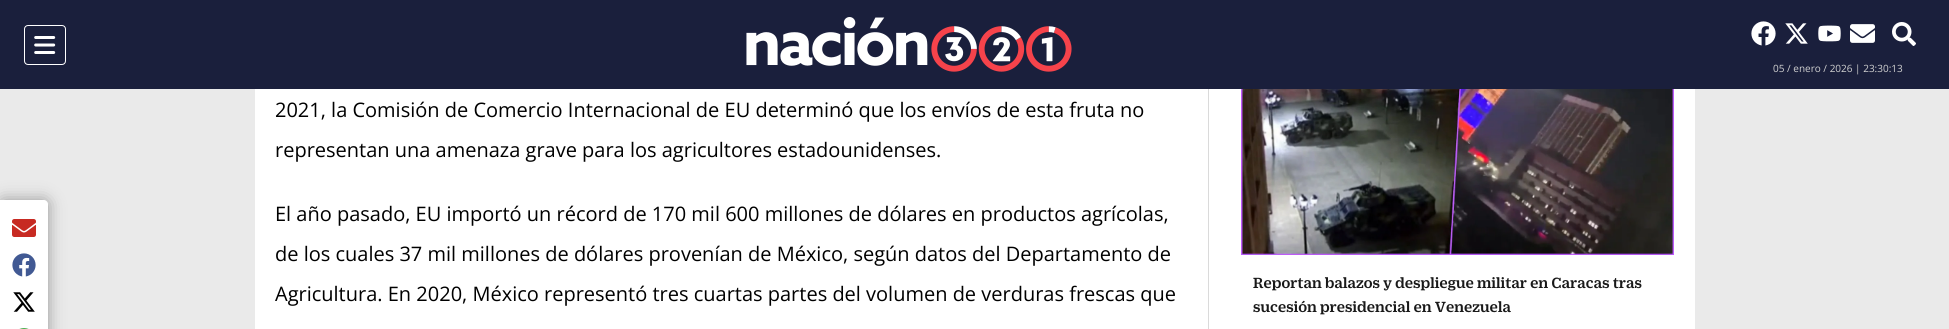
#include <cairo/cairo.h>
#include <math.h>
#include <stddef.h>

typedef struct { double x, y; const char *s; } line_t;
static cairo_t *cr;

static void rgb(unsigned color)
{
	cairo_set_source_rgb(cr, (color >> 16) / 255.0, (color >> 8 & 255) / 255.0, (color & 255) / 255.0);
}

static void rrect(double x, double y, double w, double h, double r)
{
	cairo_new_sub_path(cr);
	cairo_arc(cr, x + w - r, y + h - r, r, 0, M_PI / 2);
	cairo_arc(cr, x + r, y + h - r, r, M_PI / 2, M_PI);
	cairo_arc(cr, x + r, y + r, r, M_PI, 1.5 * M_PI);
	cairo_arc(cr, x + w - r, y + r, r, 1.5 * M_PI, 2 * M_PI);
	cairo_close_path(cr);
}

static void soft_shadow(double x, double y, double w, double h, double r, double blur, double alpha)
{
	cairo_push_group_with_content(cr, CAIRO_CONTENT_ALPHA);
	cairo_set_operator(cr, CAIRO_OPERATOR_SOURCE);
	for (int i = 15; i >= -15 && fmin(w, h) + blur * i / 3 > 0; i -= 2) {
		double e = blur * i / 6;
		cairo_set_source_rgba(cr, 0, 0, 0, alpha * erfc((i - 1) / 8.5) / 2);
		rrect(x - e, y - e, w + 2 * e, h + 2 * e, fmax(0, fmin(r + e + blur * .6, fmin(w, h) / 2 + e)));
		cairo_fill(cr);
	}
	cairo_pattern_t *soft = cairo_pop_group(cr);
	cairo_mask(cr, soft);
	cairo_pattern_destroy(soft);
}

static void image(const char *path, double x, double y, double w, double h)
{
	cairo_surface_t *image = cairo_image_surface_create_from_png(path);
	cairo_save(cr);
	cairo_set_source_surface(cr, image, x, y);
	cairo_rectangle(cr, x, y, w, h);
	cairo_fill(cr);
	cairo_restore(cr);
	cairo_surface_destroy(image);
}

int main(void) {
	cairo_surface_t *surface = cairo_image_surface_create(CAIRO_FORMAT_RGB24, 1949, 329);
	cr = cairo_create(surface);
	cairo_font_options_t *options = cairo_font_options_create();
	cairo_font_options_set_hint_metrics(options, CAIRO_HINT_METRICS_OFF);
	cairo_font_options_set_hint_style(options, CAIRO_HINT_STYLE_NONE);
	cairo_set_font_options(cr, options);
	cairo_set_miter_limit(cr, 4);
	rgb(0xeaeaea);
	cairo_paint(cr);
	rgb(0x1a1f3c);
	cairo_rectangle(cr, 0, 0, 1949, 89);
	cairo_fill(cr);
	rrect(24.5, 25.5, 41, 39, 3.5);
	rgb(0xffffff);
	cairo_set_line_width(cr, 1);
	cairo_stroke(cr);
	image("img/1.png", 34, 36, 22, 18);
	image("img/2.png", 746, 17, 326, 55);
	image("img/3.png", 1751, 21, 25, 25);
	image("img/4.png", 1785, 23, 23, 21);
	image("img/5.png", 1818, 25, 23, 17);
	image("img/6.png", 1850, 24, 25, 19);
	image("img/7.png", 1892, 22, 24, 24);
	rgb(0x191919);
	soft_shadow(0, 200, 48, 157, 4, 8, 0.4);
	rgb(0xffffff);
	cairo_new_path(cr);
	cairo_move_to(cr, 0, 200);
	cairo_line_to(cr, 44, 200);
	cairo_curve_to(cr, 46, 200, 48, 202, 48, 204);
	cairo_line_to(cr, 48, 329);
	cairo_curve_to(cr, 48, 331, 46, 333, 44, 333);
	cairo_line_to(cr, 0, 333);
	cairo_close_path(cr);
	cairo_fill(cr);
	image("img/8.png", 12, 219, 24, 18);
	image("img/9.png", 12, 253, 24, 24);
	image("img/10.png", 13, 292, 22, 20);
	image("img/11.png", 19, 328, 10, 1);
	cairo_rectangle(cr, 255, 89, 1440, 240);
	cairo_fill(cr);
	rgb(0xdadada);
	cairo_rectangle(cr, 1208, 89, 1, 240);
	cairo_fill(cr);
	image("img/12.png", 1241, 89, 433, 166);
	image("img/13.png", 1253, 277, 389, 14);
	image("img/14.png", 1253, 300, 258, 15);
	cairo_select_font_face(cr, "Open Sans", CAIRO_FONT_SLANT_NORMAL, CAIRO_FONT_WEIGHT_NORMAL);
	cairo_set_font_size(cr, 10);
	rgb(0xd1d1d1);
	cairo_move_to(cr, 1773, 72);
	cairo_show_text(cr, "05 / enero / 2026 | 23:30:13");
	cairo_set_font_size(cr, 20);
	rgb(0x000000);
	{
		static const line_t items[] = {
			{275, 117, "2021, la Comisión de Comercio Internacional de EU determinó que los envíos de esta fruta no"},
			{275, 157, "representan una amenaza grave para los agricultores estadounidenses."},
			{275, 221, "El año pasado, EU importó un récord de 170 mil 600 millones de dólares en productos agrícolas,"},
			{275, 261, "de los cuales 37 mil millones de dólares provenían de México, según datos del Departamento de"},
			{275, 301, "Agricultura. En 2020, México representó tres cuartas partes del volumen de verduras frescas que"},
		};
		for (size_t i = 0; i < sizeof items / sizeof *items; i++) {
			cairo_move_to(cr, items[i].x, items[i].y);
			cairo_show_text(cr, items[i].s);
		}
	}
	cairo_surface_write_to_png(surface, "page.png");
	cairo_font_options_destroy(options);
	cairo_destroy(cr);
	cairo_surface_destroy(surface);
	return 0;
}
